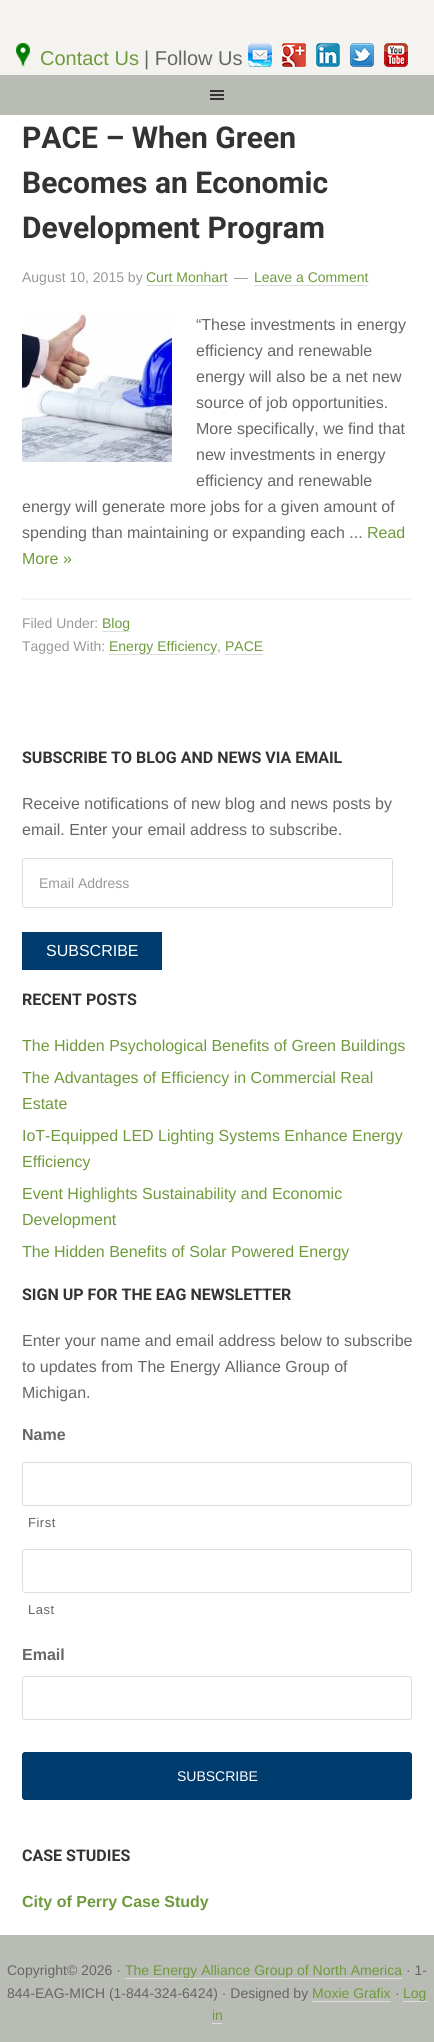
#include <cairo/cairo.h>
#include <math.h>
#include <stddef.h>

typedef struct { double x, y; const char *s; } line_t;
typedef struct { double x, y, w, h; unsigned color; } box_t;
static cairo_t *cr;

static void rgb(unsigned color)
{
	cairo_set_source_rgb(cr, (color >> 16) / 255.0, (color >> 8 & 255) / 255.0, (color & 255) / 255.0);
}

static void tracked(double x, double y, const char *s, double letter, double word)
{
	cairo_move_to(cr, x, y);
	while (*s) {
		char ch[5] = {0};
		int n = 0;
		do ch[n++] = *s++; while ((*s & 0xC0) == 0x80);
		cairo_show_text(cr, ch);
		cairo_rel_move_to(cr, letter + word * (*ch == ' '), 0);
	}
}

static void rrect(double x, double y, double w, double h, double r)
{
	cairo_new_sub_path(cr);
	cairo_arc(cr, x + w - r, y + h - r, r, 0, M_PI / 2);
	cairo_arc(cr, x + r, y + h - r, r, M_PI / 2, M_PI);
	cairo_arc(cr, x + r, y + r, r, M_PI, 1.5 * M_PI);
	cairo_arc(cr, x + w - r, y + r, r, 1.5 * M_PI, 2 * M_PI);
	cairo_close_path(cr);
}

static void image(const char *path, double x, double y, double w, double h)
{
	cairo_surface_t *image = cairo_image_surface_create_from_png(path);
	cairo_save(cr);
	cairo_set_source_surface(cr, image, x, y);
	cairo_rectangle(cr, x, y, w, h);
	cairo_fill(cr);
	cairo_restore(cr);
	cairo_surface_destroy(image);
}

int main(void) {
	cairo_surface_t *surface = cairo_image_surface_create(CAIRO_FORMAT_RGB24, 434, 2042);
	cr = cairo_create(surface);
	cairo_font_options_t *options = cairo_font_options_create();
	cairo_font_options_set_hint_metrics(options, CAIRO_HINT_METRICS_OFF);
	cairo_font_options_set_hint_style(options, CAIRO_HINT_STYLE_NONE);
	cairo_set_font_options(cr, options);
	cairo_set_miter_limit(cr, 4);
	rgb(0xf4f3ef);
	cairo_paint(cr);
	image("img/1.png", 16, 43, 14, 24);
	image("img/2.png", 248, 43, 24, 24);
	image("img/3.png", 282, 43, 24, 24);
	image("img/4.png", 316, 43, 24, 24);
	image("img/5.png", 350, 43, 24, 24);
	image("img/6.png", 384, 43, 24, 24);
	rgb(0xb9bcb5);
	cairo_rectangle(cr, 0, 75, 434, 40);
	cairo_fill(cr);
	image("img/7.png", 210, 90, 14, 10);
	{
		static const box_t items[] = {
			{0, 115, 434, 1820, 0xffffff},
			{146, 285, 82, 1, 0xdddddd},
			{254, 285, 114, 1, 0xdddddd},
		};
		for (size_t i = 0; i < sizeof items / sizeof *items; i++) {
			rgb(items[i].color);
			cairo_rectangle(cr, items[i].x, items[i].y, items[i].w, items[i].h);
			cairo_fill(cr);
		}
	}
	image("img/8.png", 22, 312, 150, 150);
	{
		static const box_t items[] = {
			{22, 598, 390, 2, 0xf5f5f5},
			{102, 631, 28, 1, 0xdddddd},
			{109, 654, 108, 1, 0xdddddd},
			{225, 654, 38, 1, 0xdddddd},
		};
		for (size_t i = 0; i < sizeof items / sizeof *items; i++) {
			rgb(items[i].color);
			cairo_rectangle(cr, items[i].x, items[i].y, items[i].w, items[i].h);
			cairo_fill(cr);
		}
	}
	rrect(22.5, 858.5, 370, 49, 2.5);
	cairo_set_line_width(cr, 1);
	cairo_stroke(cr);
	rgb(0x003b6d);
	cairo_rectangle(cr, 22, 932, 140, 38);
	cairo_fill(cr);
	rrect(22.5, 1462.5, 389, 43, 2.5);
	rgb(0xdddddd);
	cairo_stroke(cr);
	rrect(22.5, 1549.5, 389, 43, 2.5);
	cairo_stroke(cr);
	rrect(22.5, 1676.5, 389, 43, 2.5);
	cairo_stroke(cr);
	rgb(0x003b6d);
	rrect(22, 1752, 390, 48, 3);
	cairo_fill(cr);
	{
		static const box_t items[] = {
			{0, 1935, 434, 107, 0xb9bcb5},
			{125, 1978, 277, 1, 0xdddddd},
			{312, 2001, 79, 1, 0xdddddd},
			{403, 2001, 24, 1, 0xdddddd},
			{212, 2023, 10, 1, 0xdddddd},
		};
		for (size_t i = 0; i < sizeof items / sizeof *items; i++) {
			rgb(items[i].color);
			cairo_rectangle(cr, items[i].x, items[i].y, items[i].w, items[i].h);
			cairo_fill(cr);
		}
	}
	cairo_select_font_face(cr, "Liberation Sans", CAIRO_FONT_SLANT_NORMAL, CAIRO_FONT_WEIGHT_NORMAL);
	cairo_set_font_size(cr, 20);
	rgb(0x6e9a3b);
	cairo_move_to(cr, 40, 65);
	cairo_show_text(cr, "Contact Us");
	rgb(0x666666);
	cairo_move_to(cr, 144, 65);
	cairo_show_text(cr, "| Follow Us");
	cairo_select_font_face(cr, "Roboto", CAIRO_FONT_SLANT_NORMAL, CAIRO_FONT_WEIGHT_BOLD);
	cairo_set_font_size(cr, 30);
	rgb(0x333333);
	{
		static const line_t items[] = {
			{22, 148, "PACE – When Green"},
			{22, 193, "Becomes an Economic"},
			{22, 238, "Development Program"},
		};
		for (size_t i = 0; i < sizeof items / sizeof *items; i++) {
			cairo_move_to(cr, items[i].x, items[i].y);
			cairo_show_text(cr, items[i].s);
		}
	}
	cairo_select_font_face(cr, "Liberation Sans", CAIRO_FONT_SLANT_NORMAL, CAIRO_FONT_WEIGHT_NORMAL);
	cairo_set_font_size(cr, 14);
	rgb(0x999999);
	cairo_move_to(cr, 22, 282);
	cairo_show_text(cr, "August 10, 2015 by");
	rgb(0x6e9a3b);
	cairo_move_to(cr, 146, 282);
	cairo_show_text(cr, "Curt Monhart");
	rgb(0x999999);
	cairo_move_to(cr, 234, 282);
	cairo_show_text(cr, "—");
	rgb(0x6e9a3b);
	cairo_move_to(cr, 254, 282);
	cairo_show_text(cr, "Leave a Comment");
	cairo_set_font_size(cr, 16);
	rgb(0x666666);
	{
		static const line_t items[] = {
			{196, 330, "“These investments in energy"},
			{196, 356, "efficiency and renewable"},
			{196, 382, "energy will also be a net new"},
			{196, 408, "source of job opportunities."},
			{196, 434, "More specifically, we find that"},
			{196, 460, "new investments in energy"},
			{196, 486, "efficiency and renewable"},
			{22, 512, "energy will generate more jobs for a given amount of"},
			{22, 538, "spending than maintaining or expanding each ..."},
		};
		for (size_t i = 0; i < sizeof items / sizeof *items; i++) {
			cairo_move_to(cr, items[i].x, items[i].y);
			cairo_show_text(cr, items[i].s);
		}
	}
	rgb(0x6e9a3b);
	cairo_move_to(cr, 367, 538);
	cairo_show_text(cr, "Read");
	cairo_move_to(cr, 22, 564);
	cairo_show_text(cr, "More »");
	cairo_set_font_size(cr, 14);
	rgb(0x999999);
	cairo_move_to(cr, 22, 628);
	cairo_show_text(cr, "Filed Under:");
	rgb(0x6e9a3b);
	cairo_move_to(cr, 102, 628);
	cairo_show_text(cr, "Blog");
	rgb(0x999999);
	cairo_move_to(cr, 22, 651);
	cairo_show_text(cr, "Tagged With:");
	rgb(0x6e9a3b);
	cairo_move_to(cr, 109, 651);
	cairo_show_text(cr, "Energy Efficiency");
	rgb(0x999999);
	cairo_move_to(cr, 217, 651);
	cairo_show_text(cr, ",");
	rgb(0x6e9a3b);
	cairo_move_to(cr, 225, 651);
	cairo_show_text(cr, "PACE");
	cairo_select_font_face(cr, "Roboto", CAIRO_FONT_SLANT_NORMAL, CAIRO_FONT_WEIGHT_BOLD);
	cairo_set_font_size(cr, 16);
	rgb(0x333333);
	cairo_move_to(cr, 22, 763);
	cairo_show_text(cr, "SUBSCRIBE TO BLOG AND NEWS VIA EMAIL");
	cairo_select_font_face(cr, "Liberation Sans", CAIRO_FONT_SLANT_NORMAL, CAIRO_FONT_WEIGHT_NORMAL);
	rgb(0x666666);
	cairo_move_to(cr, 22, 809);
	cairo_show_text(cr, "Receive notifications of new blog and news posts by");
	cairo_move_to(cr, 22, 835);
	cairo_show_text(cr, "email. Enter your email address to subscribe.");
	cairo_set_font_size(cr, 14);
	rgb(0x999999);
	cairo_move_to(cr, 39, 888);
	cairo_show_text(cr, "Email Address");
	cairo_set_font_size(cr, 16);
	rgb(0xffffff);
	cairo_move_to(cr, 46, 956);
	cairo_show_text(cr, "SUBSCRIBE");
	cairo_select_font_face(cr, "Roboto", CAIRO_FONT_SLANT_NORMAL, CAIRO_FONT_WEIGHT_BOLD);
	rgb(0x333333);
	cairo_move_to(cr, 22, 1005);
	cairo_show_text(cr, "RECENT POSTS");
	cairo_select_font_face(cr, "Liberation Sans", CAIRO_FONT_SLANT_NORMAL, CAIRO_FONT_WEIGHT_NORMAL);
	rgb(0x6e9a3b);
	{
		static const line_t items[] = {
			{22, 1051, "The Hidden Psychological Benefits of Green Buildings"},
			{22, 1083, "The Advantages of Efficiency in Commercial Real"},
			{22, 1109, "Estate"},
			{22, 1141, "IoT-Equipped LED Lighting Systems Enhance Energy"},
			{22, 1167, "Efficiency"},
			{22, 1199, "Event Highlights Sustainability and Economic"},
			{22, 1225, "Development"},
			{22, 1257, "The Hidden Benefits of Solar Powered Energy"},
		};
		for (size_t i = 0; i < sizeof items / sizeof *items; i++) {
			cairo_move_to(cr, items[i].x, items[i].y);
			cairo_show_text(cr, items[i].s);
		}
	}
	cairo_select_font_face(cr, "Roboto", CAIRO_FONT_SLANT_NORMAL, CAIRO_FONT_WEIGHT_BOLD);
	rgb(0x333333);
	cairo_move_to(cr, 22, 1300);
	cairo_show_text(cr, "SIGN UP FOR THE EAG NEWSLETTER");
	cairo_select_font_face(cr, "Liberation Sans", CAIRO_FONT_SLANT_NORMAL, CAIRO_FONT_WEIGHT_NORMAL);
	rgb(0x666666);
	{
		static const line_t items[] = {
			{22, 1346, "Enter your name and email address below to subscribe"},
			{22, 1372, "to updates from The Energy Alliance Group of"},
			{22, 1398, "Michigan."},
		};
		for (size_t i = 0; i < sizeof items / sizeof *items; i++) {
			cairo_move_to(cr, items[i].x, items[i].y);
			cairo_show_text(cr, items[i].s);
		}
	}
	cairo_select_font_face(cr, "Liberation Sans", CAIRO_FONT_SLANT_NORMAL, CAIRO_FONT_WEIGHT_BOLD);
	cairo_move_to(cr, 22, 1440);
	cairo_show_text(cr, "Name");
	cairo_select_font_face(cr, "Liberation Sans", CAIRO_FONT_SLANT_NORMAL, CAIRO_FONT_WEIGHT_NORMAL);
	cairo_set_font_size(cr, 13);
	tracked(28, 1527, "First", 0.5, 0);
	tracked(28, 1614, "Last", 0.5, 0);
	cairo_select_font_face(cr, "Liberation Sans", CAIRO_FONT_SLANT_NORMAL, CAIRO_FONT_WEIGHT_BOLD);
	cairo_set_font_size(cr, 16);
	cairo_move_to(cr, 22, 1660);
	cairo_show_text(cr, "Email");
	cairo_select_font_face(cr, "Liberation Sans", CAIRO_FONT_SLANT_NORMAL, CAIRO_FONT_WEIGHT_NORMAL);
	cairo_set_font_size(cr, 14);
	rgb(0xffffff);
	cairo_move_to(cr, 177, 1781);
	cairo_show_text(cr, "SUBSCRIBE");
	cairo_select_font_face(cr, "Roboto", CAIRO_FONT_SLANT_NORMAL, CAIRO_FONT_WEIGHT_BOLD);
	cairo_set_font_size(cr, 16);
	rgb(0x333333);
	cairo_move_to(cr, 22, 1861);
	cairo_show_text(cr, "CASE STUDIES");
	cairo_select_font_face(cr, "Liberation Sans", CAIRO_FONT_SLANT_NORMAL, CAIRO_FONT_WEIGHT_BOLD);
	rgb(0x6e9a3b);
	cairo_move_to(cr, 22, 1907);
	cairo_show_text(cr, "City of Perry Case Study");
	cairo_select_font_face(cr, "Liberation Sans", CAIRO_FONT_SLANT_NORMAL, CAIRO_FONT_WEIGHT_NORMAL);
	cairo_set_font_size(cr, 14);
	rgb(0x666666);
	cairo_move_to(cr, 7, 1975);
	cairo_show_text(cr, "Copyright© 2026 ·");
	rgb(0x6e9a3b);
	cairo_move_to(cr, 125, 1975);
	cairo_show_text(cr, "The Energy Alliance Group of North America");
	rgb(0x666666);
	cairo_move_to(cr, 406, 1975);
	cairo_show_text(cr, "· 1-");
	cairo_move_to(cr, 7, 1998);
	cairo_show_text(cr, "844-EAG-MICH (1-844-324-6424) · Designed by");
	rgb(0x6e9a3b);
	cairo_move_to(cr, 312, 1998);
	cairo_show_text(cr, "Moxie Grafix");
	rgb(0x666666);
	cairo_move_to(cr, 395, 1998);
	cairo_show_text(cr, "·");
	rgb(0x6e9a3b);
	cairo_move_to(cr, 403, 1998);
	cairo_show_text(cr, "Log");
	cairo_move_to(cr, 212, 2020);
	cairo_show_text(cr, "in");
	cairo_surface_write_to_png(surface, "page.png");
	cairo_font_options_destroy(options);
	cairo_destroy(cr);
	cairo_surface_destroy(surface);
	return 0;
}
